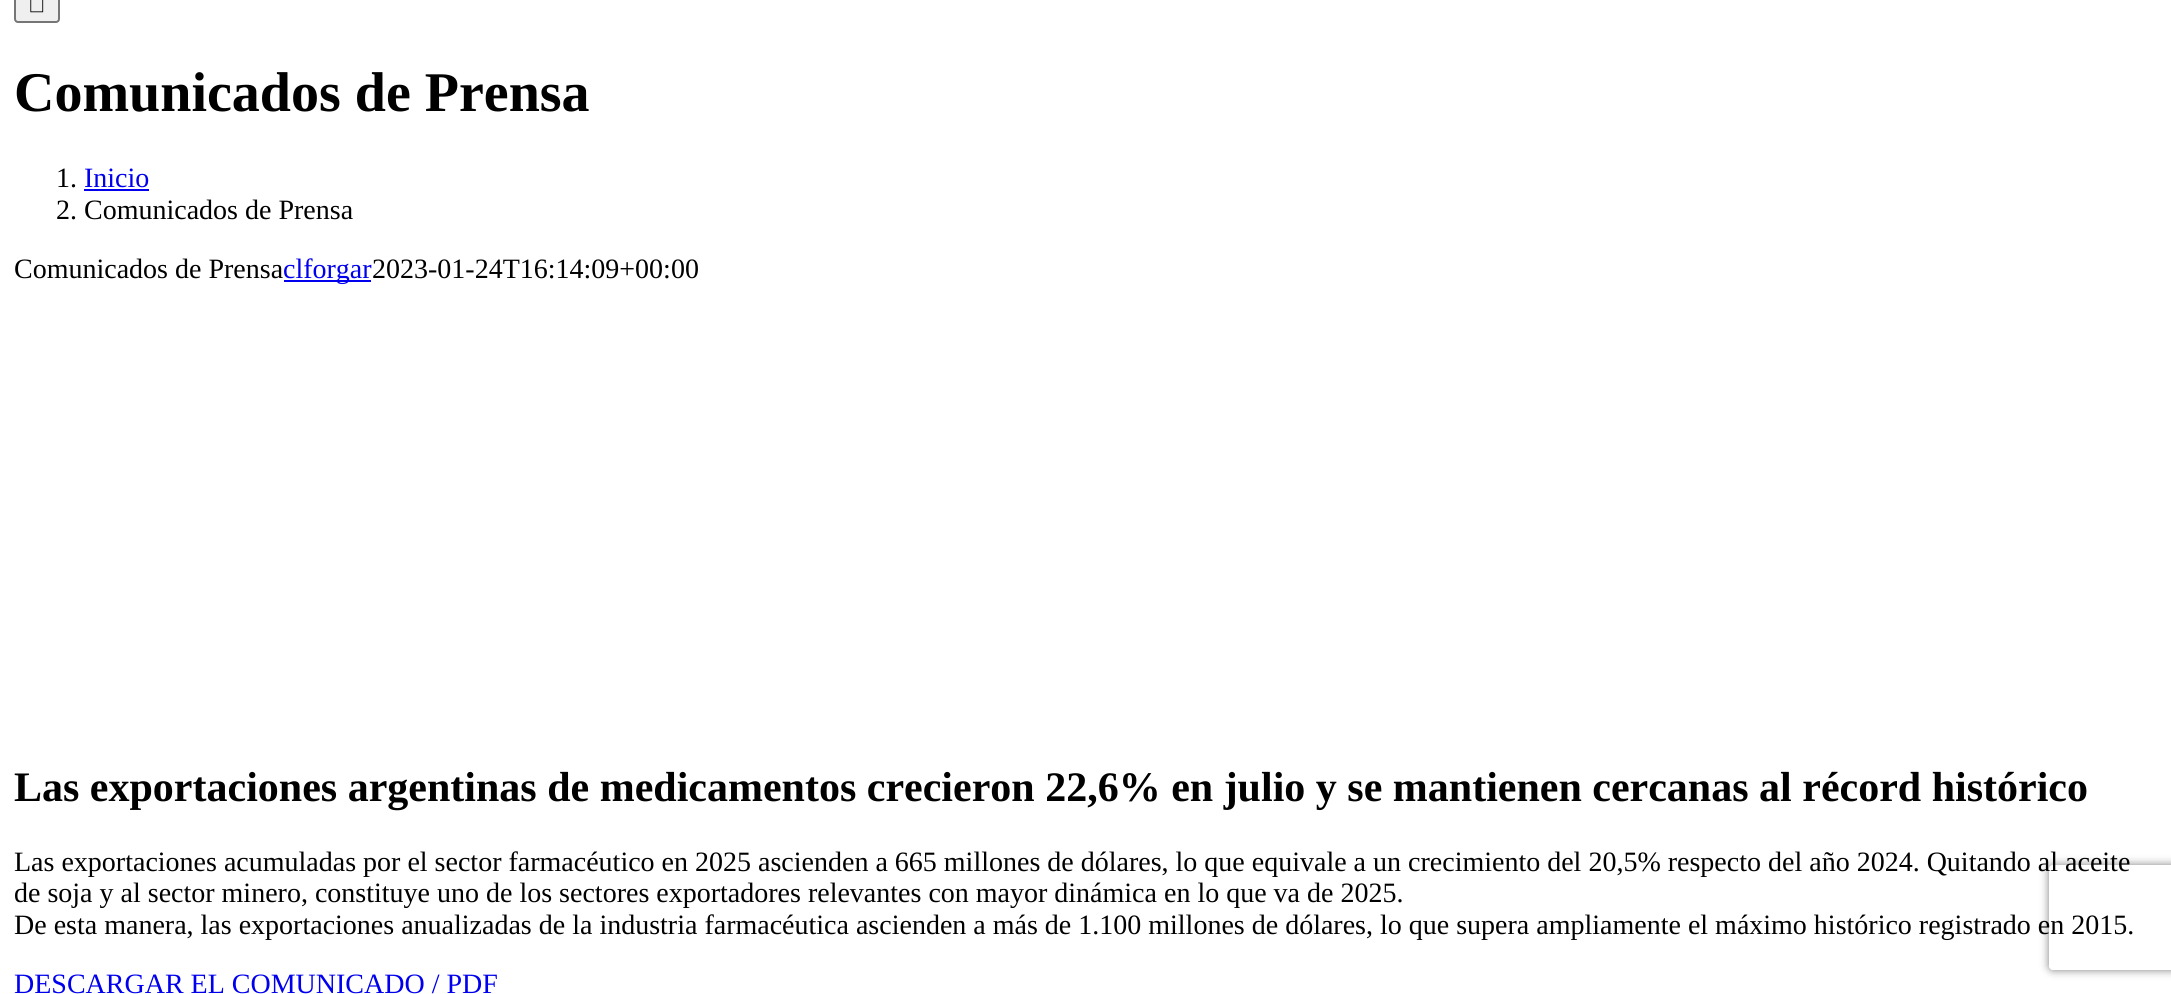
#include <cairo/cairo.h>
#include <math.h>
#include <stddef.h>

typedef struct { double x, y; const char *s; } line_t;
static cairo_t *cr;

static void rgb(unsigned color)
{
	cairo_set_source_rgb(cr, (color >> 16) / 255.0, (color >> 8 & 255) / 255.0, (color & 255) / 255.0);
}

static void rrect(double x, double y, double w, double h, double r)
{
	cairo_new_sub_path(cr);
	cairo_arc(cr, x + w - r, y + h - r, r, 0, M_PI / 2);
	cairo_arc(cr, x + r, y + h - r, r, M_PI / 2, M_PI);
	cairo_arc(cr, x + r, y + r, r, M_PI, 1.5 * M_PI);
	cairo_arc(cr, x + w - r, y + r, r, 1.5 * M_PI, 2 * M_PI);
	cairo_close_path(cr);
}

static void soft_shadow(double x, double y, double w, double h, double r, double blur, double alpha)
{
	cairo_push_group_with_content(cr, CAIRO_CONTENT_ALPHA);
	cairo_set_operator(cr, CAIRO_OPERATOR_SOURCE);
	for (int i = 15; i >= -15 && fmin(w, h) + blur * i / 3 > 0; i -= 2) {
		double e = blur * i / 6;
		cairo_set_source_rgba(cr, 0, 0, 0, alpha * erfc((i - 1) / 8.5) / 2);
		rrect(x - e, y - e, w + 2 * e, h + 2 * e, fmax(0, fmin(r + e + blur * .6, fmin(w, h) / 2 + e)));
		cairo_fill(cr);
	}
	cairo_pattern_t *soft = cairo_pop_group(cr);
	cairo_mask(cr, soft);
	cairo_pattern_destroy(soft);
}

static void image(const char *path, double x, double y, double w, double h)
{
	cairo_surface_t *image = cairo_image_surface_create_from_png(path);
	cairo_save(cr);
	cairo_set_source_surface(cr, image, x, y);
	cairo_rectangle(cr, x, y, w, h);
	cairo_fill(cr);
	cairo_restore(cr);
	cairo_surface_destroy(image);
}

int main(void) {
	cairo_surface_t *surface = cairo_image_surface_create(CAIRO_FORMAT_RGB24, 2171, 994);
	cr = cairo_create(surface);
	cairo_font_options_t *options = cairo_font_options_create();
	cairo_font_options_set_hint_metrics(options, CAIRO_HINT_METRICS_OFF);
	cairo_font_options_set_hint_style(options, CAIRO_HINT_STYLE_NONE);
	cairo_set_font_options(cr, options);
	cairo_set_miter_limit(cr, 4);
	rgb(0xffffff);
	cairo_paint(cr);
	rgb(0xefefef);
	rrect(15, -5, 44, 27, 3);
	cairo_fill_preserve(cr);
	rgb(0x767676);
	cairo_stroke(cr);
	image("img/1.png", 30, 0, 14, 13);
	rgb(0x0000ee);
	cairo_rectangle(cr, 84, 189, 65, 2);
	cairo_fill(cr);
	cairo_rectangle(cr, 284, 280, 87, 2);
	cairo_fill(cr);
	cairo_save(cr);
	cairo_set_fill_rule(cr, CAIRO_FILL_RULE_EVEN_ODD);
	cairo_new_path(cr);
	cairo_move_to(cr, 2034, 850);
	cairo_line_to(cr, 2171, 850);
	cairo_line_to(cr, 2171, 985);
	cairo_line_to(cr, 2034, 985);
	cairo_close_path(cr);
	cairo_move_to(cr, 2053, 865);
	cairo_line_to(cr, 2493, 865);
	cairo_curve_to(cr, 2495, 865, 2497, 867, 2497, 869);
	cairo_line_to(cr, 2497, 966);
	cairo_curve_to(cr, 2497, 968, 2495, 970, 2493, 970);
	cairo_line_to(cr, 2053, 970);
	cairo_curve_to(cr, 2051, 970, 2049, 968, 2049, 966);
	cairo_line_to(cr, 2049, 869);
	cairo_curve_to(cr, 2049, 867, 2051, 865, 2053, 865);
	cairo_close_path(cr);
	cairo_clip(cr);
	rgb(0x808080);
	soft_shadow(2049, 865, 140, 105, 4, 4.5, 1);
	cairo_restore(cr);
	cairo_select_font_face(cr, "Liberation Serif", CAIRO_FONT_SLANT_NORMAL, CAIRO_FONT_WEIGHT_BOLD);
	cairo_set_font_size(cr, 56);
	rgb(0x000000);
	cairo_move_to(cr, 14, 111);
	cairo_show_text(cr, "Comunicados de Prensa");
	cairo_select_font_face(cr, "Liberation Serif", CAIRO_FONT_SLANT_NORMAL, CAIRO_FONT_WEIGHT_NORMAL);
	cairo_set_font_size(cr, 28);
	cairo_move_to(cr, 56, 187);
	cairo_show_text(cr, "1.");
	rgb(0x0000ee);
	cairo_move_to(cr, 84, 187);
	cairo_show_text(cr, "Inicio");
	rgb(0x000000);
	cairo_move_to(cr, 56, 219);
	cairo_show_text(cr, "2. Comunicados de Prensa");
	cairo_move_to(cr, 14, 278);
	cairo_show_text(cr, "Comunicados de Prensa");
	rgb(0x0000ee);
	cairo_move_to(cr, 283, 278);
	cairo_show_text(cr, "clforgar");
	rgb(0x000000);
	cairo_move_to(cr, 372, 278);
	cairo_show_text(cr, "2023-01-24T16:14:09+00:00");
	cairo_select_font_face(cr, "Liberation Serif", CAIRO_FONT_SLANT_NORMAL, CAIRO_FONT_WEIGHT_BOLD);
	cairo_set_font_size(cr, 42);
	cairo_move_to(cr, 14, 801);
	cairo_show_text(cr, "Las exportaciones argentinas de medicamentos crecieron 22,6% en julio y se mantienen cercanas al récord histórico");
	cairo_select_font_face(cr, "Liberation Serif", CAIRO_FONT_SLANT_NORMAL, CAIRO_FONT_WEIGHT_NORMAL);
	cairo_set_font_size(cr, 28);
	{
		static const line_t items[] = {
			{14, 871, "Las exportaciones acumuladas por el sector farmacéutico en 2025 ascienden a 665 millones de dólares, lo que equivale a un crecimiento del 20,5% respecto del año 2024. Quitando al aceite"},
			{14, 902, "de soja y al sector minero, constituye uno de los sectores exportadores relevantes con mayor dinámica en lo que va de 2025."},
			{14, 934, "De esta manera, las exportaciones anualizadas de la industria farmacéutica ascienden a más de 1.100 millones de dólares, lo que supera ampliamente el máximo histórico registrado en 2015."},
		};
		for (size_t i = 0; i < sizeof items / sizeof *items; i++) {
			cairo_move_to(cr, items[i].x, items[i].y);
			cairo_show_text(cr, items[i].s);
		}
	}
	rgb(0x0000ee);
	cairo_move_to(cr, 14, 993);
	cairo_show_text(cr, "DESCARGAR EL COMUNICADO / PDF");
	cairo_surface_write_to_png(surface, "page.png");
	cairo_font_options_destroy(options);
	cairo_destroy(cr);
	cairo_surface_destroy(surface);
	return 0;
}
